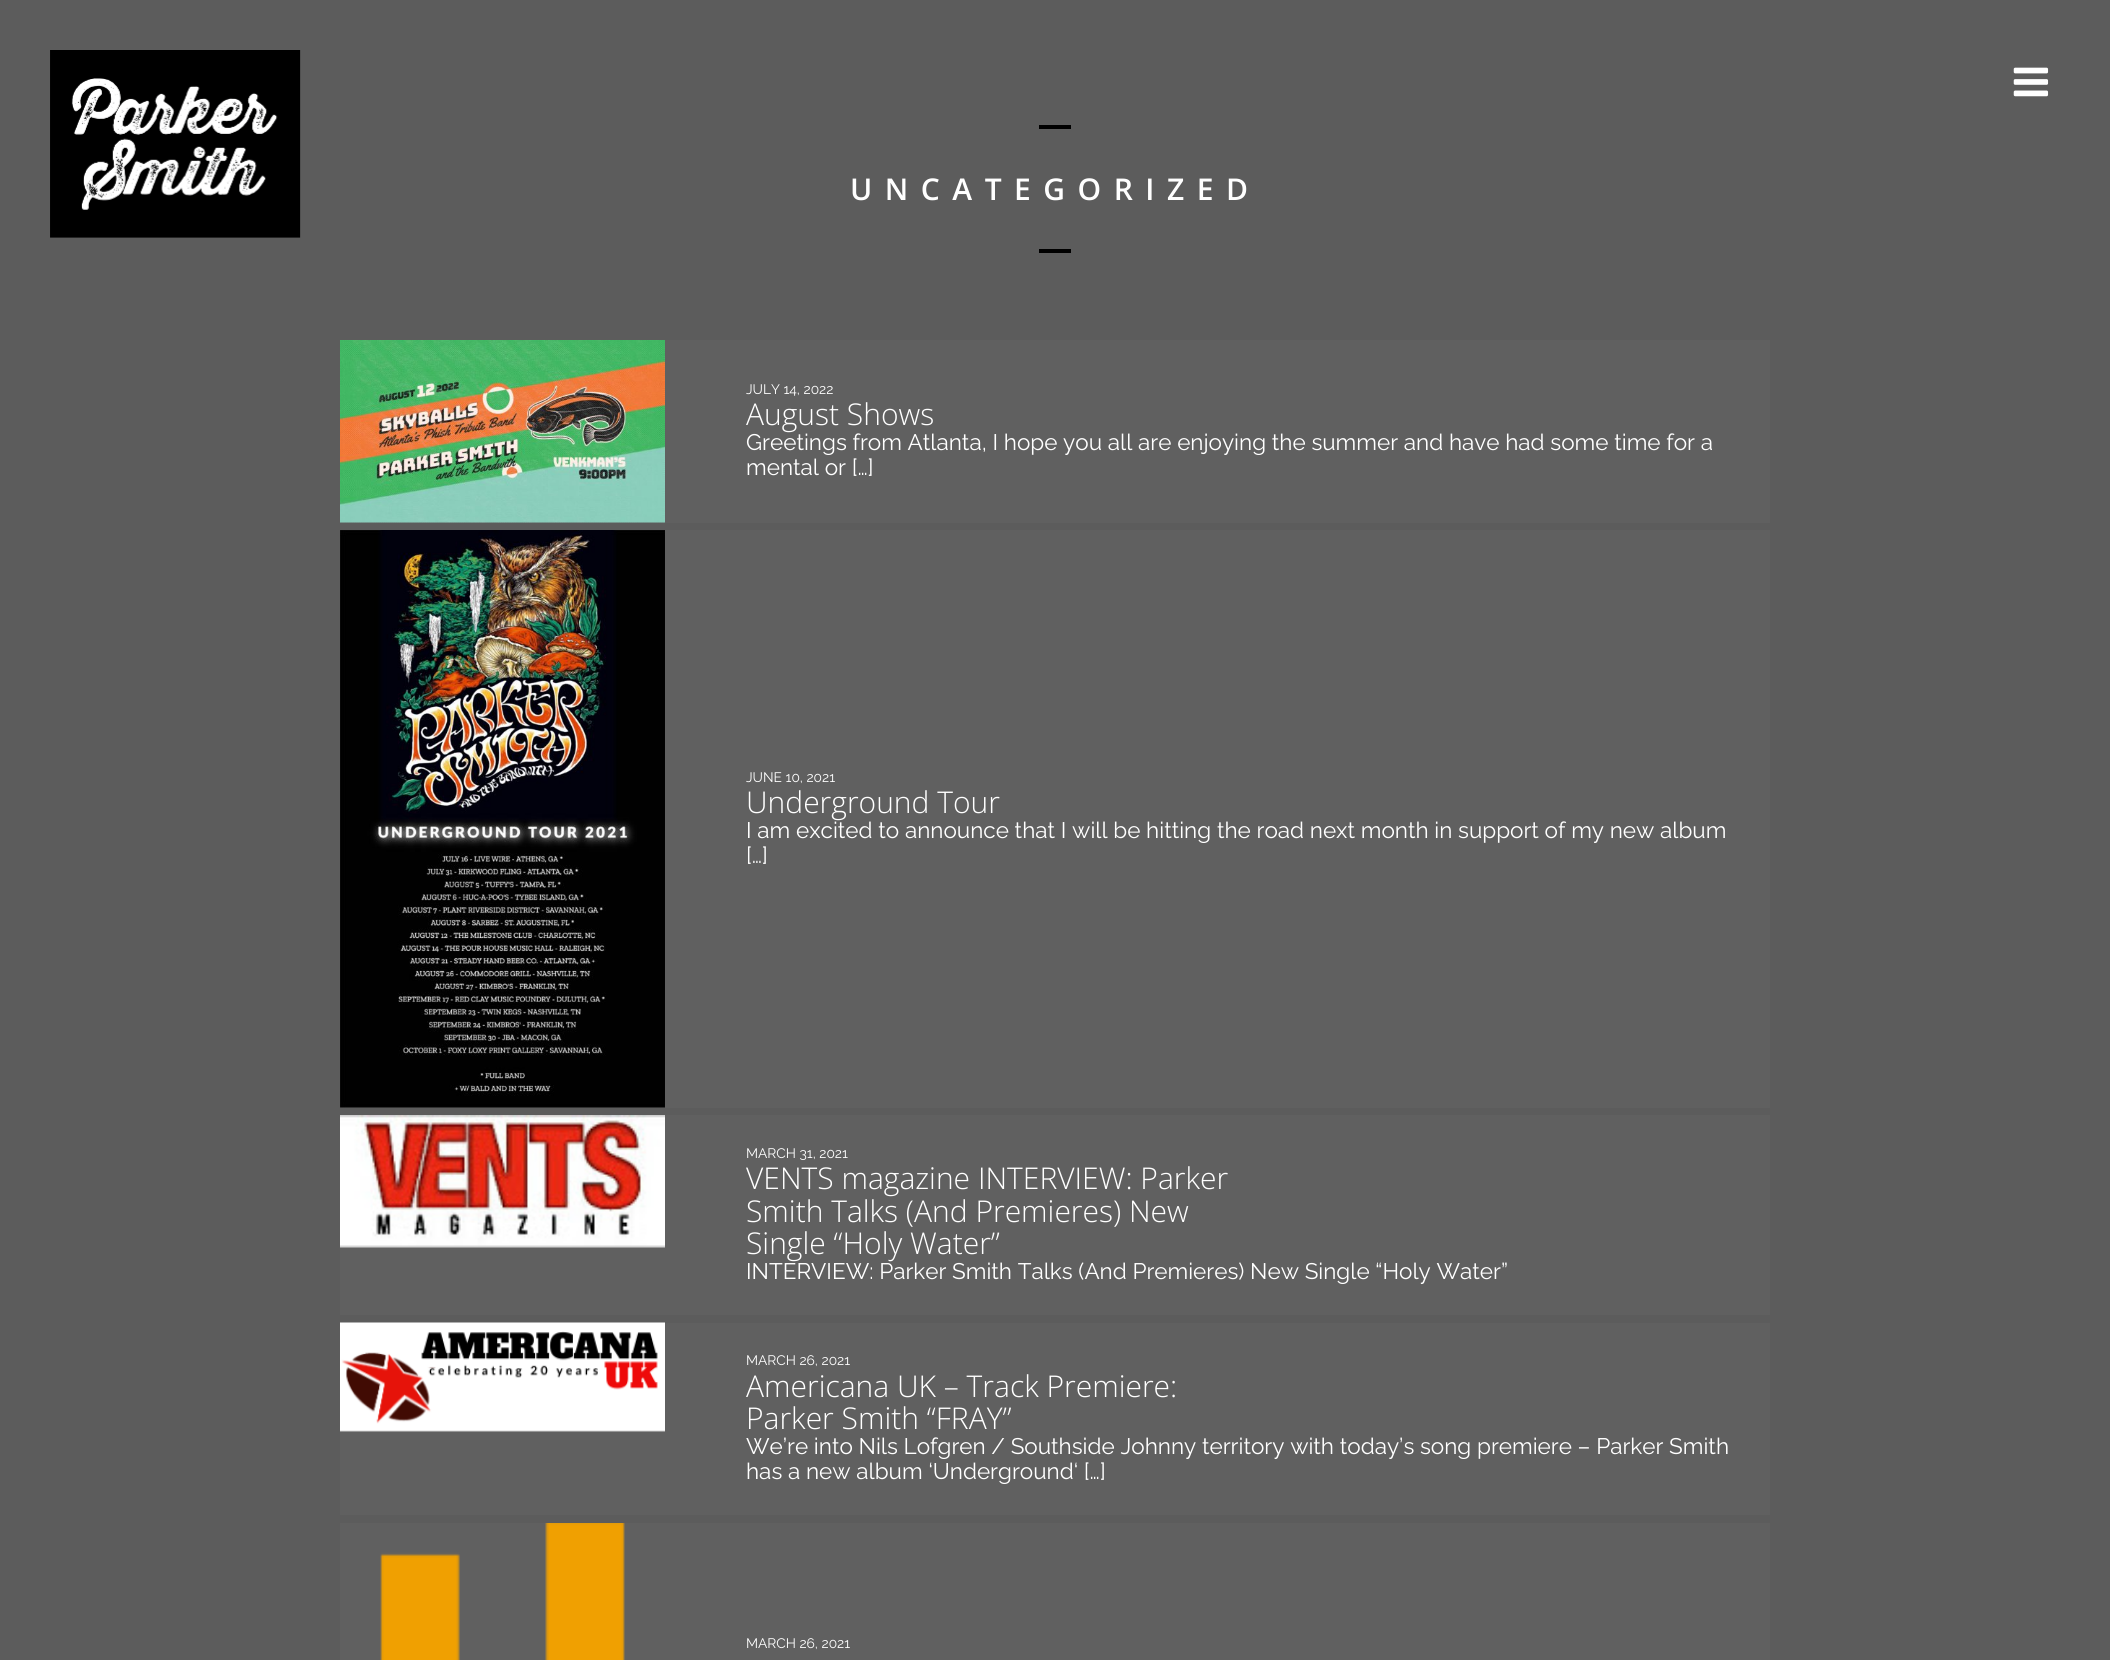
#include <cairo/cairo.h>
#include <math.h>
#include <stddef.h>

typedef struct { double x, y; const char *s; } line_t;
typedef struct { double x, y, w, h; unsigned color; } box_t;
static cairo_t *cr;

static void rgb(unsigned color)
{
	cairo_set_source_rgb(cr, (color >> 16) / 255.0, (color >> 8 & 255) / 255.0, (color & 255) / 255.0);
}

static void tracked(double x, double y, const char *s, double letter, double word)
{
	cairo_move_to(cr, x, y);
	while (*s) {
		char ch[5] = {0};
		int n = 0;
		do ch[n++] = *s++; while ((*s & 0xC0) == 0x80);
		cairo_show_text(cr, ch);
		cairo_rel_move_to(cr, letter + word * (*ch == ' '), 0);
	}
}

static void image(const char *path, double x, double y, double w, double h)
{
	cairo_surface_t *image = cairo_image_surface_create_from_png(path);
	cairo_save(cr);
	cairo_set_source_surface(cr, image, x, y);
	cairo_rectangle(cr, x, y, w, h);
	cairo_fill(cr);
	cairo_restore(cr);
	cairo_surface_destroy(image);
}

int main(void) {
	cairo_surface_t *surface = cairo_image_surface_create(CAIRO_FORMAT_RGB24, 2110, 1660);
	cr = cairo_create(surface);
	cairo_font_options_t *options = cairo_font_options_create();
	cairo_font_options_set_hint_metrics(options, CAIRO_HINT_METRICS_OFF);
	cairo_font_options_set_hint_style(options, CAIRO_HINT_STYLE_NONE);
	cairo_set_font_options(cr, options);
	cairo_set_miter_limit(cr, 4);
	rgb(0x5c5c5c);
	cairo_paint(cr);
	image("img/1.png", 50, 50, 251, 188);
	image("img/2.png", 2013, 67, 36, 30);
	{
		static const box_t items[] = {
			{1039, 125, 32, 4, 0x000000},
			{1039, 249, 32, 4, 0x000000},
			{340, 340, 1430, 183, 0x606060},
		};
		for (size_t i = 0; i < sizeof items / sizeof *items; i++) {
			rgb(items[i].color);
			cairo_rectangle(cr, items[i].x, items[i].y, items[i].w, items[i].h);
			cairo_fill(cr);
		}
	}
	image("img/3.png", 340, 340, 325, 183);
	cairo_rectangle(cr, 340, 530, 1430, 578);
	cairo_fill(cr);
	image("img/4.png", 340, 530, 325, 578);
	cairo_rectangle(cr, 340, 1115, 1430, 200);
	cairo_fill(cr);
	image("img/5.png", 340, 1115, 325, 133);
	cairo_rectangle(cr, 340, 1323, 1430, 192);
	cairo_fill(cr);
	image("img/6.png", 340, 1322, 325, 110);
	cairo_rectangle(cr, 340, 1523, 1430, 137);
	cairo_fill(cr);
	image("img/7.png", 380, 1523, 245, 137);
	cairo_select_font_face(cr, "Open Sans SemiBold", CAIRO_FONT_SLANT_NORMAL, CAIRO_FONT_WEIGHT_NORMAL);
	cairo_set_font_size(cr, 30);
	rgb(0xffffff);
	tracked(850, 200, "UNCATEGORIZED", 12.5, 0);
	cairo_select_font_face(cr, "Raleway Thin", CAIRO_FONT_SLANT_NORMAL, CAIRO_FONT_WEIGHT_NORMAL);
	cairo_set_font_size(cr, 13.75);
	cairo_move_to(cr, 746, 394);
	cairo_show_text(cr, "JULY 14, 2022");
	cairo_select_font_face(cr, "Open Sans Light", CAIRO_FONT_SLANT_NORMAL, CAIRO_FONT_WEIGHT_NORMAL);
	cairo_set_font_size(cr, 30);
	cairo_move_to(cr, 746, 425);
	cairo_show_text(cr, "August Shows");
	cairo_select_font_face(cr, "Raleway Thin", CAIRO_FONT_SLANT_NORMAL, CAIRO_FONT_WEIGHT_NORMAL);
	cairo_set_font_size(cr, 22.5);
	cairo_move_to(cr, 746, 450);
	cairo_show_text(cr, "Greetings from Atlanta, I hope you all are enjoying the summer and have had some time for a");
	cairo_move_to(cr, 746, 475);
	cairo_show_text(cr, "mental or […]");
	cairo_set_font_size(cr, 13.75);
	cairo_move_to(cr, 746, 782);
	cairo_show_text(cr, "JUNE 10, 2021");
	cairo_select_font_face(cr, "Open Sans Light", CAIRO_FONT_SLANT_NORMAL, CAIRO_FONT_WEIGHT_NORMAL);
	cairo_set_font_size(cr, 30);
	cairo_move_to(cr, 746, 813);
	cairo_show_text(cr, "Underground Tour");
	cairo_select_font_face(cr, "Raleway Thin", CAIRO_FONT_SLANT_NORMAL, CAIRO_FONT_WEIGHT_NORMAL);
	cairo_set_font_size(cr, 22.5);
	cairo_move_to(cr, 746, 838);
	cairo_show_text(cr, "I am excited to announce that I will be hitting the road next month in support of my new album");
	cairo_move_to(cr, 746, 863);
	cairo_show_text(cr, "[…]");
	cairo_set_font_size(cr, 13.75);
	cairo_move_to(cr, 746, 1158);
	cairo_show_text(cr, "MARCH 31, 2021");
	cairo_select_font_face(cr, "Open Sans Light", CAIRO_FONT_SLANT_NORMAL, CAIRO_FONT_WEIGHT_NORMAL);
	cairo_set_font_size(cr, 30);
	{
		static const line_t items[] = {
			{746, 1189, "VENTS magazine INTERVIEW: Parker"},
			{746, 1222, "Smith Talks (And Premieres) New"},
			{746, 1254, "Single “Holy Water”"},
		};
		for (size_t i = 0; i < sizeof items / sizeof *items; i++) {
			cairo_move_to(cr, items[i].x, items[i].y);
			cairo_show_text(cr, items[i].s);
		}
	}
	cairo_select_font_face(cr, "Raleway Thin", CAIRO_FONT_SLANT_NORMAL, CAIRO_FONT_WEIGHT_NORMAL);
	cairo_set_font_size(cr, 22.5);
	cairo_move_to(cr, 746, 1279);
	cairo_show_text(cr, "INTERVIEW: Parker Smith Talks (And Premieres) New Single “Holy Water”");
	cairo_set_font_size(cr, 13.75);
	cairo_move_to(cr, 746, 1365);
	cairo_show_text(cr, "MARCH 26, 2021");
	cairo_select_font_face(cr, "Open Sans Light", CAIRO_FONT_SLANT_NORMAL, CAIRO_FONT_WEIGHT_NORMAL);
	cairo_set_font_size(cr, 30);
	cairo_move_to(cr, 746, 1397);
	cairo_show_text(cr, "Americana UK – Track Premiere:");
	cairo_move_to(cr, 746, 1429);
	cairo_show_text(cr, "Parker Smith “FRAY”");
	cairo_select_font_face(cr, "Raleway Thin", CAIRO_FONT_SLANT_NORMAL, CAIRO_FONT_WEIGHT_NORMAL);
	cairo_set_font_size(cr, 22.5);
	cairo_move_to(cr, 746, 1454);
	cairo_show_text(cr, "We’re into Nils Lofgren / Southside Johnny territory with today’s song premiere – Parker Smith");
	cairo_move_to(cr, 746, 1479);
	cairo_show_text(cr, "has a new album ‘Underground‘ […]");
	cairo_set_font_size(cr, 13.75);
	cairo_move_to(cr, 746, 1648);
	cairo_show_text(cr, "MARCH 26, 2021");
	cairo_surface_write_to_png(surface, "page.png");
	cairo_font_options_destroy(options);
	cairo_destroy(cr);
	cairo_surface_destroy(surface);
	return 0;
}
